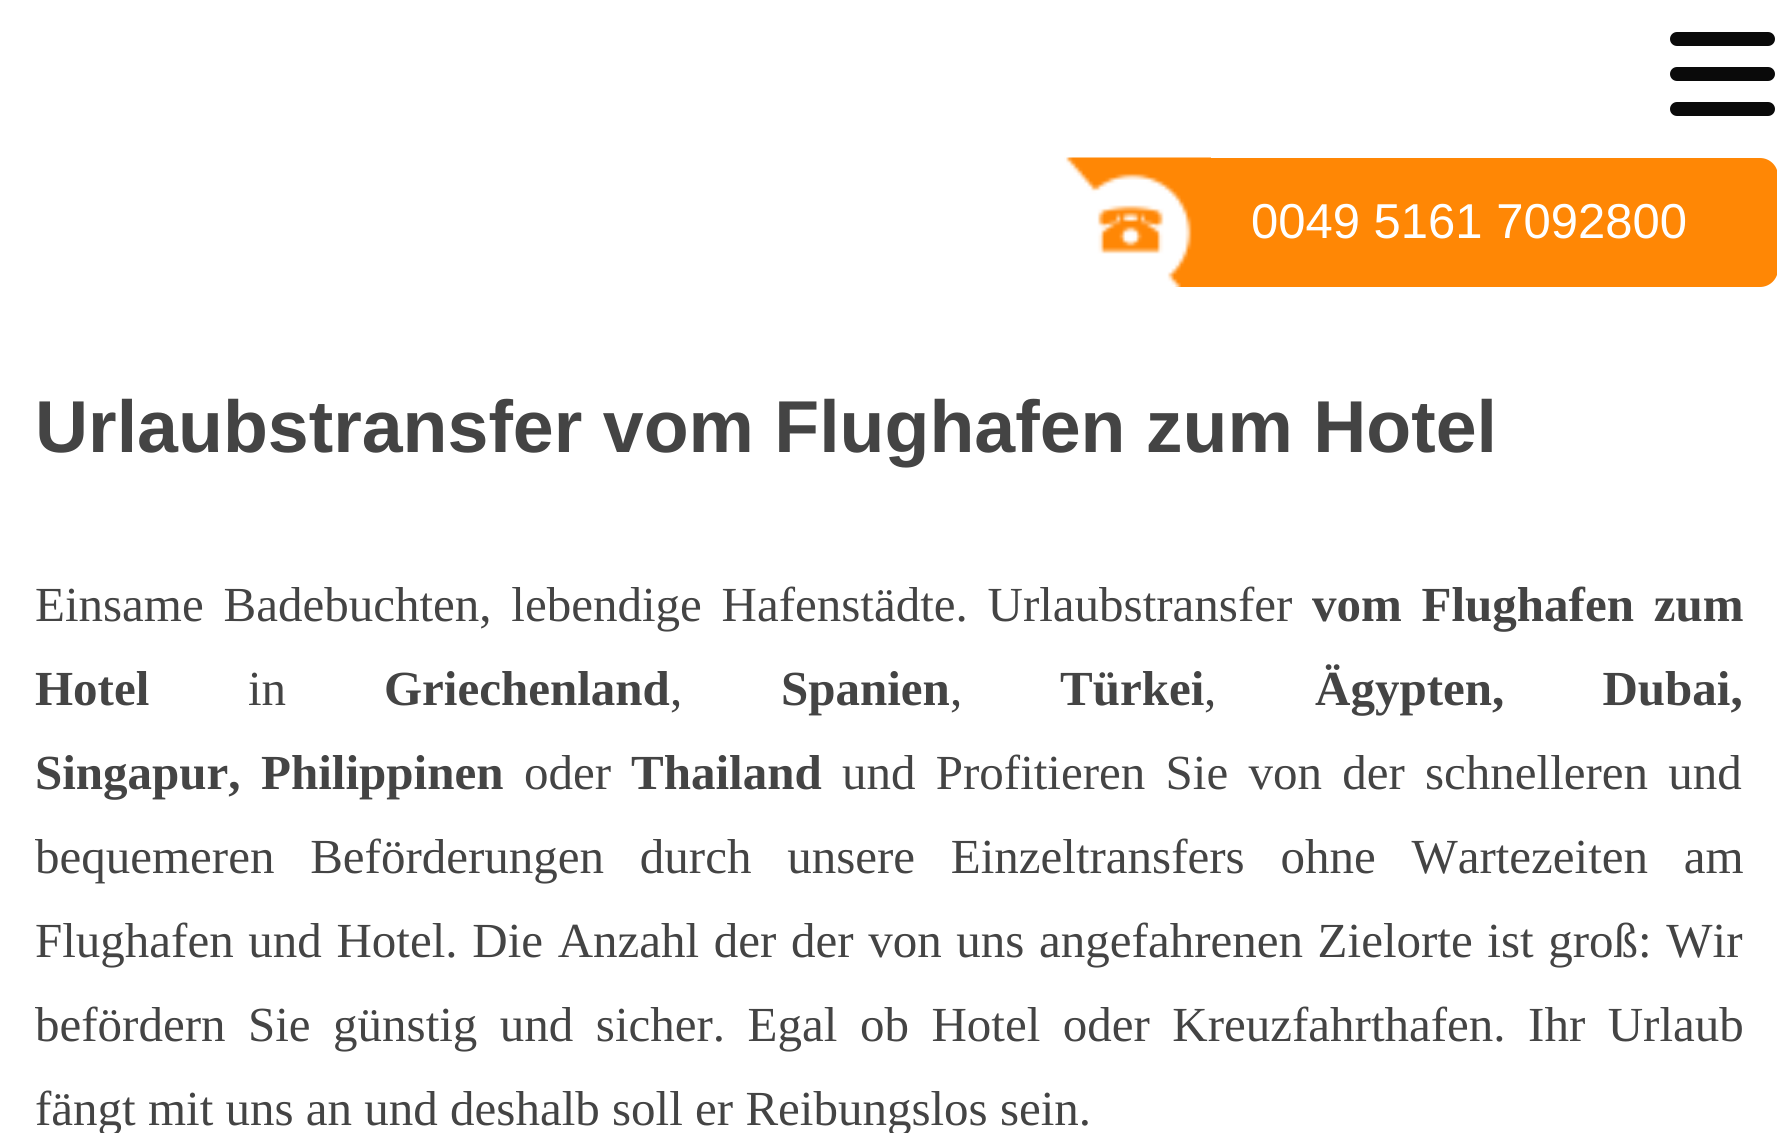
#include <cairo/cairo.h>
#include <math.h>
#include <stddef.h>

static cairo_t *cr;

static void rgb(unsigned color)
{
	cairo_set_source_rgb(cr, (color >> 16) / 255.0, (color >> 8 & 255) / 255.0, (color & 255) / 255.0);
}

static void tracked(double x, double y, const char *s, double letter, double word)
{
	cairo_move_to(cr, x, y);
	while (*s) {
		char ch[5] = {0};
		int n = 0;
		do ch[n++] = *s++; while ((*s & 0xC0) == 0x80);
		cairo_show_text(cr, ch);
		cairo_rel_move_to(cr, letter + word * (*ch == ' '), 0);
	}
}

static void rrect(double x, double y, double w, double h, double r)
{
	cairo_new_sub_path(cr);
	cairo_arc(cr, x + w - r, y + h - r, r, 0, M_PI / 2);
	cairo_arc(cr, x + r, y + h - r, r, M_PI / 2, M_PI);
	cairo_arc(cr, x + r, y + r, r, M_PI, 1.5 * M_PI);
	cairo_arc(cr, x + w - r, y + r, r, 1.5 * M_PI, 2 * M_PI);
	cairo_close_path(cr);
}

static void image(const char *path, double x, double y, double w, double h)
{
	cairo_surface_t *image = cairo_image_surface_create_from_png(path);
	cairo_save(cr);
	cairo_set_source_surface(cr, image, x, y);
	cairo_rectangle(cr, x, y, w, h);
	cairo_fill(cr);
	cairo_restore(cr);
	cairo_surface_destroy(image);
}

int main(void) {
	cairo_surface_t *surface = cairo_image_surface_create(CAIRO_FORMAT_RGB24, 1777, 1133);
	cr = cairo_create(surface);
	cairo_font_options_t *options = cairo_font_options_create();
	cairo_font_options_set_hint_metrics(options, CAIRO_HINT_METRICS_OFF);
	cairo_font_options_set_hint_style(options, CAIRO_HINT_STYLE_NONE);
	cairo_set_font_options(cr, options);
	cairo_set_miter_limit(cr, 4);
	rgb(0xffffff);
	cairo_paint(cr);
	rgb(0x0a0a0a);
	rrect(1670, 32, 105, 14, 7);
	cairo_fill(cr);
	rrect(1670, 67, 105, 14, 7);
	cairo_fill(cr);
	rrect(1670, 102, 105, 14, 7);
	cairo_fill(cr);
	rgb(0xff8705);
	rrect(1064, 158, 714, 129, 18);
	cairo_fill(cr);
	image("img/1.png", 1064, 157, 147, 130);
	cairo_select_font_face(cr, "Liberation Sans", CAIRO_FONT_SLANT_NORMAL, CAIRO_FONT_WEIGHT_NORMAL);
	cairo_set_font_size(cr, 49);
	rgb(0xffffff);
	cairo_move_to(cr, 1251, 238);
	cairo_show_text(cr, "0049 5161 7092800");
	cairo_select_font_face(cr, "Liberation Sans", CAIRO_FONT_SLANT_NORMAL, CAIRO_FONT_WEIGHT_BOLD);
	cairo_set_font_size(cr, 73.5);
	rgb(0x444444);
	cairo_move_to(cr, 35, 452);
	cairo_show_text(cr, "Urlaubstransfer vom Flughafen zum Hotel");
	cairo_select_font_face(cr, "Liberation Serif", CAIRO_FONT_SLANT_NORMAL, CAIRO_FONT_WEIGHT_NORMAL);
	cairo_set_font_size(cr, 49);
	tracked(35, 621, "Einsame Badebuchten, lebendige Hafenstädte. Urlaubstransfer", 0, 7.5);
	cairo_select_font_face(cr, "Liberation Serif", CAIRO_FONT_SLANT_NORMAL, CAIRO_FONT_WEIGHT_BOLD);
	tracked(1312, 621, "vom Flughafen zum", 0, 7.5);
	cairo_move_to(cr, 35, 705);
	cairo_show_text(cr, "Hotel");
	cairo_select_font_face(cr, "Liberation Serif", CAIRO_FONT_SLANT_NORMAL, CAIRO_FONT_WEIGHT_NORMAL);
	cairo_move_to(cr, 248, 705);
	cairo_show_text(cr, "in");
	cairo_select_font_face(cr, "Liberation Serif", CAIRO_FONT_SLANT_NORMAL, CAIRO_FONT_WEIGHT_BOLD);
	cairo_move_to(cr, 384, 705);
	cairo_show_text(cr, "Griechenland");
	cairo_select_font_face(cr, "Liberation Serif", CAIRO_FONT_SLANT_NORMAL, CAIRO_FONT_WEIGHT_NORMAL);
	cairo_move_to(cr, 670, 705);
	cairo_show_text(cr, ",");
	cairo_select_font_face(cr, "Liberation Serif", CAIRO_FONT_SLANT_NORMAL, CAIRO_FONT_WEIGHT_BOLD);
	cairo_move_to(cr, 781, 705);
	cairo_show_text(cr, "Spanien");
	cairo_select_font_face(cr, "Liberation Serif", CAIRO_FONT_SLANT_NORMAL, CAIRO_FONT_WEIGHT_NORMAL);
	cairo_move_to(cr, 950, 705);
	cairo_show_text(cr, ",");
	cairo_select_font_face(cr, "Liberation Serif", CAIRO_FONT_SLANT_NORMAL, CAIRO_FONT_WEIGHT_BOLD);
	cairo_move_to(cr, 1060, 705);
	cairo_show_text(cr, "Türkei");
	cairo_select_font_face(cr, "Liberation Serif", CAIRO_FONT_SLANT_NORMAL, CAIRO_FONT_WEIGHT_NORMAL);
	cairo_move_to(cr, 1204, 705);
	cairo_show_text(cr, ",");
	cairo_select_font_face(cr, "Liberation Serif", CAIRO_FONT_SLANT_NORMAL, CAIRO_FONT_WEIGHT_BOLD);
	tracked(1315, 705, "Ägypten, Dubai,", 0, 86);
	cairo_move_to(cr, 35, 789);
	cairo_show_text(cr, "Singapur,");
	cairo_move_to(cr, 261, 789);
	cairo_show_text(cr, "Philippinen");
	cairo_select_font_face(cr, "Liberation Serif", CAIRO_FONT_SLANT_NORMAL, CAIRO_FONT_WEIGHT_NORMAL);
	cairo_move_to(cr, 524, 789);
	cairo_show_text(cr, "oder");
	cairo_select_font_face(cr, "Liberation Serif", CAIRO_FONT_SLANT_NORMAL, CAIRO_FONT_WEIGHT_BOLD);
	cairo_move_to(cr, 631, 789);
	cairo_show_text(cr, "Thailand");
	cairo_select_font_face(cr, "Liberation Serif", CAIRO_FONT_SLANT_NORMAL, CAIRO_FONT_WEIGHT_NORMAL);
	tracked(842, 789, "und Profitieren Sie von der schnelleren und", 0, 8);
	tracked(35, 873, "bequemeren Beförderungen durch unsere Einzeltransfers ohne Wartezeiten am", 0, 23.5);
	tracked(35, 957, "Flughafen und Hotel. Die Anzahl der der von uns angefahrenen Zielorte ist groß: Wir", 0, 2.4);
	tracked(35, 1041, "befördern Sie günstig und sicher. Egal ob Hotel oder Kreuzfahrthafen. Ihr Urlaub", 0, 10.25);
	cairo_move_to(cr, 35, 1125);
	cairo_show_text(cr, "fängt mit uns an und deshalb soll er Reibungslos sein.");
	cairo_surface_write_to_png(surface, "page.png");
	cairo_font_options_destroy(options);
	cairo_destroy(cr);
	cairo_surface_destroy(surface);
	return 0;
}
